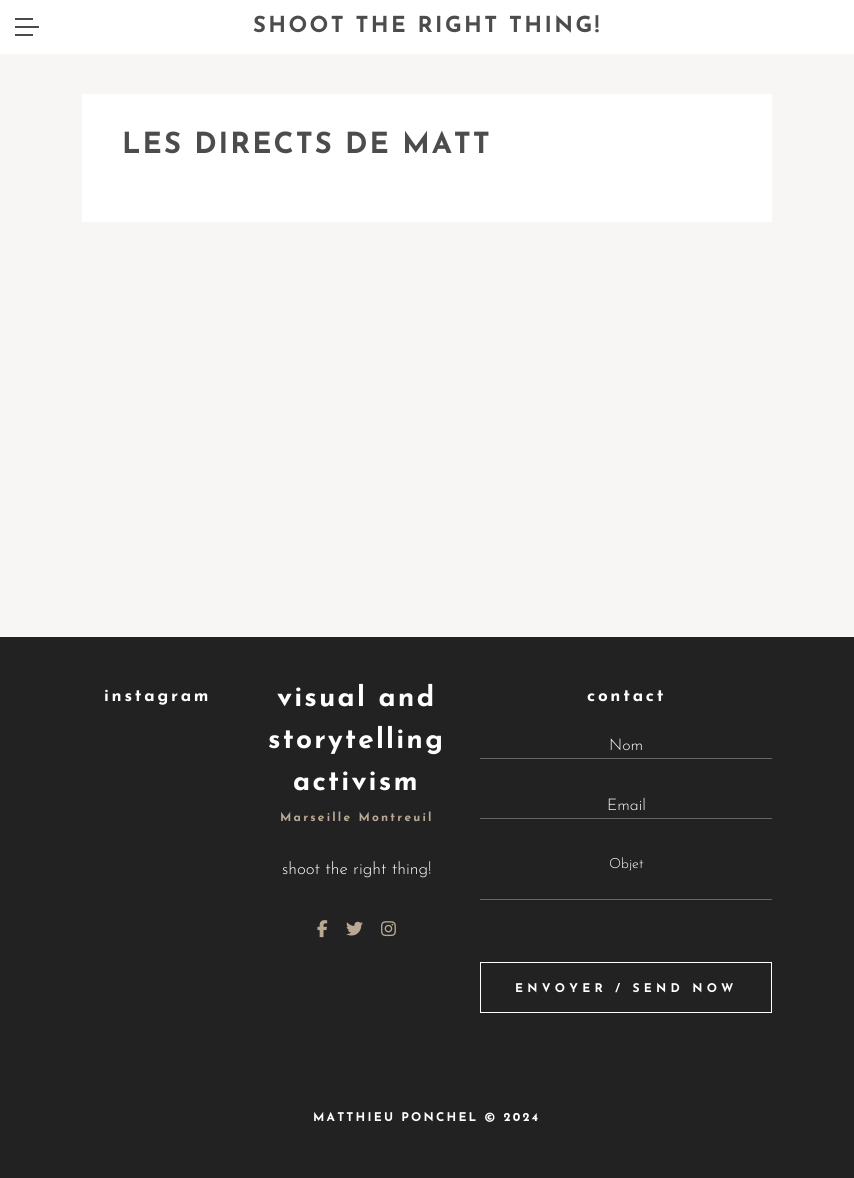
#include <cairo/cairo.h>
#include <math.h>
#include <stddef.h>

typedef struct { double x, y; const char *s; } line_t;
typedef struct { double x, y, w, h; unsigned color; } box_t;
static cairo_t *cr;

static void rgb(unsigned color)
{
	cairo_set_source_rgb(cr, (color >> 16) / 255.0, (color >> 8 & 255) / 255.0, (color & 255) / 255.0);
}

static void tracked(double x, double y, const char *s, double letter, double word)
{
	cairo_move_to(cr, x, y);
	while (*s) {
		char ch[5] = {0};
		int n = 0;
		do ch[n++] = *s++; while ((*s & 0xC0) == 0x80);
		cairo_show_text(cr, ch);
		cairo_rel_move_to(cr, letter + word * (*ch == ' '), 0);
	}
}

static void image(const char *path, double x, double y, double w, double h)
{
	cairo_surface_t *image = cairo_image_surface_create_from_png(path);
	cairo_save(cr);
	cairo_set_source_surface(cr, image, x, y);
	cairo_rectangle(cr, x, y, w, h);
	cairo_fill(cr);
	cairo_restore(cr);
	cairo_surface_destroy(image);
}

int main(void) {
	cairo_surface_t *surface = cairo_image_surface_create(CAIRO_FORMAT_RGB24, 854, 1178);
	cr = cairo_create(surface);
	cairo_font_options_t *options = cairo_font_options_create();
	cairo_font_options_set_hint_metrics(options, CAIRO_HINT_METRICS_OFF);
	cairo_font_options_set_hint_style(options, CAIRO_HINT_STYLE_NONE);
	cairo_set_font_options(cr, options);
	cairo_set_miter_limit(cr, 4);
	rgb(0xf8f6f5);
	cairo_paint(cr);
	{
		static const box_t items[] = {
			{0, 0, 854, 54, 0xffffff},
			{15, 18, 18, 2, 0x4c4c4c},
			{15, 26, 24, 2, 0x4c4c4c},
			{15, 34, 18, 2, 0x4c4c4c},
			{82, 94, 690, 128, 0xffffff},
			{0, 637, 854, 541, 0x222222},
		};
		for (size_t i = 0; i < sizeof items / sizeof *items; i++) {
			rgb(items[i].color);
			cairo_rectangle(cr, items[i].x, items[i].y, items[i].w, items[i].h);
			cairo_fill(cr);
		}
	}
	image("img/1.png", 317, 920, 11, 18);
	image("img/2.png", 346, 921, 17, 15);
	image("img/3.png", 381, 921, 15, 16);
	{
		static const box_t items[] = {
			{480, 758, 292, 1, 0x666666},
			{480, 818, 292, 1, 0x666666},
			{480, 899, 292, 1, 0x666666},
		};
		for (size_t i = 0; i < sizeof items / sizeof *items; i++) {
			rgb(items[i].color);
			cairo_rectangle(cr, items[i].x, items[i].y, items[i].w, items[i].h);
			cairo_fill(cr);
		}
	}
	cairo_rectangle(cr, 480.5, 962.5, 291, 50);
	rgb(0xffffff);
	cairo_set_line_width(cr, 1);
	cairo_stroke(cr);
	cairo_select_font_face(cr, "Josefin Sans", CAIRO_FONT_SLANT_NORMAL, CAIRO_FONT_WEIGHT_BOLD);
	cairo_set_font_size(cr, 22);
	rgb(0x4c4c4c);
	tracked(253, 32, "SHOOT THE RIGHT THING!", 2.4, 0);
	cairo_set_font_size(cr, 29);
	tracked(122, 153, "LES DIRECTS DE MATT", 2, 0);
	cairo_set_font_size(cr, 17);
	rgb(0xffffff);
	tracked(104, 701, "instagram", 2.75, 0);
	cairo_set_font_size(cr, 28);
	{
		static const line_t items[] = {
			{277, 706, "visual and"},
			{268, 748, "storytelling"},
			{293, 790, "activism"},
		};
		for (size_t i = 0; i < sizeof items / sizeof *items; i++) {
			tracked(items[i].x, items[i].y, items[i].s, 2.2, 0);
		}
	}
	cairo_set_font_size(cr, 12);
	rgb(0xb9a893);
	tracked(280, 821, "Marseille Montreuil", 2.2, 0);
	cairo_select_font_face(cr, "Josefin Sans Light", CAIRO_FONT_SLANT_NORMAL, CAIRO_FONT_WEIGHT_NORMAL);
	cairo_set_font_size(cr, 17);
	rgb(0xffffff);
	cairo_move_to(cr, 282, 874);
	cairo_show_text(cr, "shoot the right thing!");
	cairo_select_font_face(cr, "Josefin Sans", CAIRO_FONT_SLANT_NORMAL, CAIRO_FONT_WEIGHT_BOLD);
	tracked(587, 701, "contact", 2.75, 0);
	cairo_select_font_face(cr, "Josefin Sans Light", CAIRO_FONT_SLANT_NORMAL, CAIRO_FONT_WEIGHT_NORMAL);
	cairo_set_font_size(cr, 16);
	cairo_move_to(cr, 609, 750);
	cairo_show_text(cr, "Nom");
	cairo_move_to(cr, 607, 810);
	cairo_show_text(cr, "Email");
	cairo_set_font_size(cr, 14);
	cairo_move_to(cr, 609, 868);
	cairo_show_text(cr, "Objet");
	cairo_select_font_face(cr, "Josefin Sans", CAIRO_FONT_SLANT_NORMAL, CAIRO_FONT_WEIGHT_BOLD);
	cairo_set_font_size(cr, 12);
	tracked(515, 992, "ENVOYER / SEND NOW", 4.25, 0);
	tracked(313, 1121, "MATTHIEU PONCHEL © 2024", 2.2, 0);
	cairo_surface_write_to_png(surface, "page.png");
	cairo_font_options_destroy(options);
	cairo_destroy(cr);
	cairo_surface_destroy(surface);
	return 0;
}
